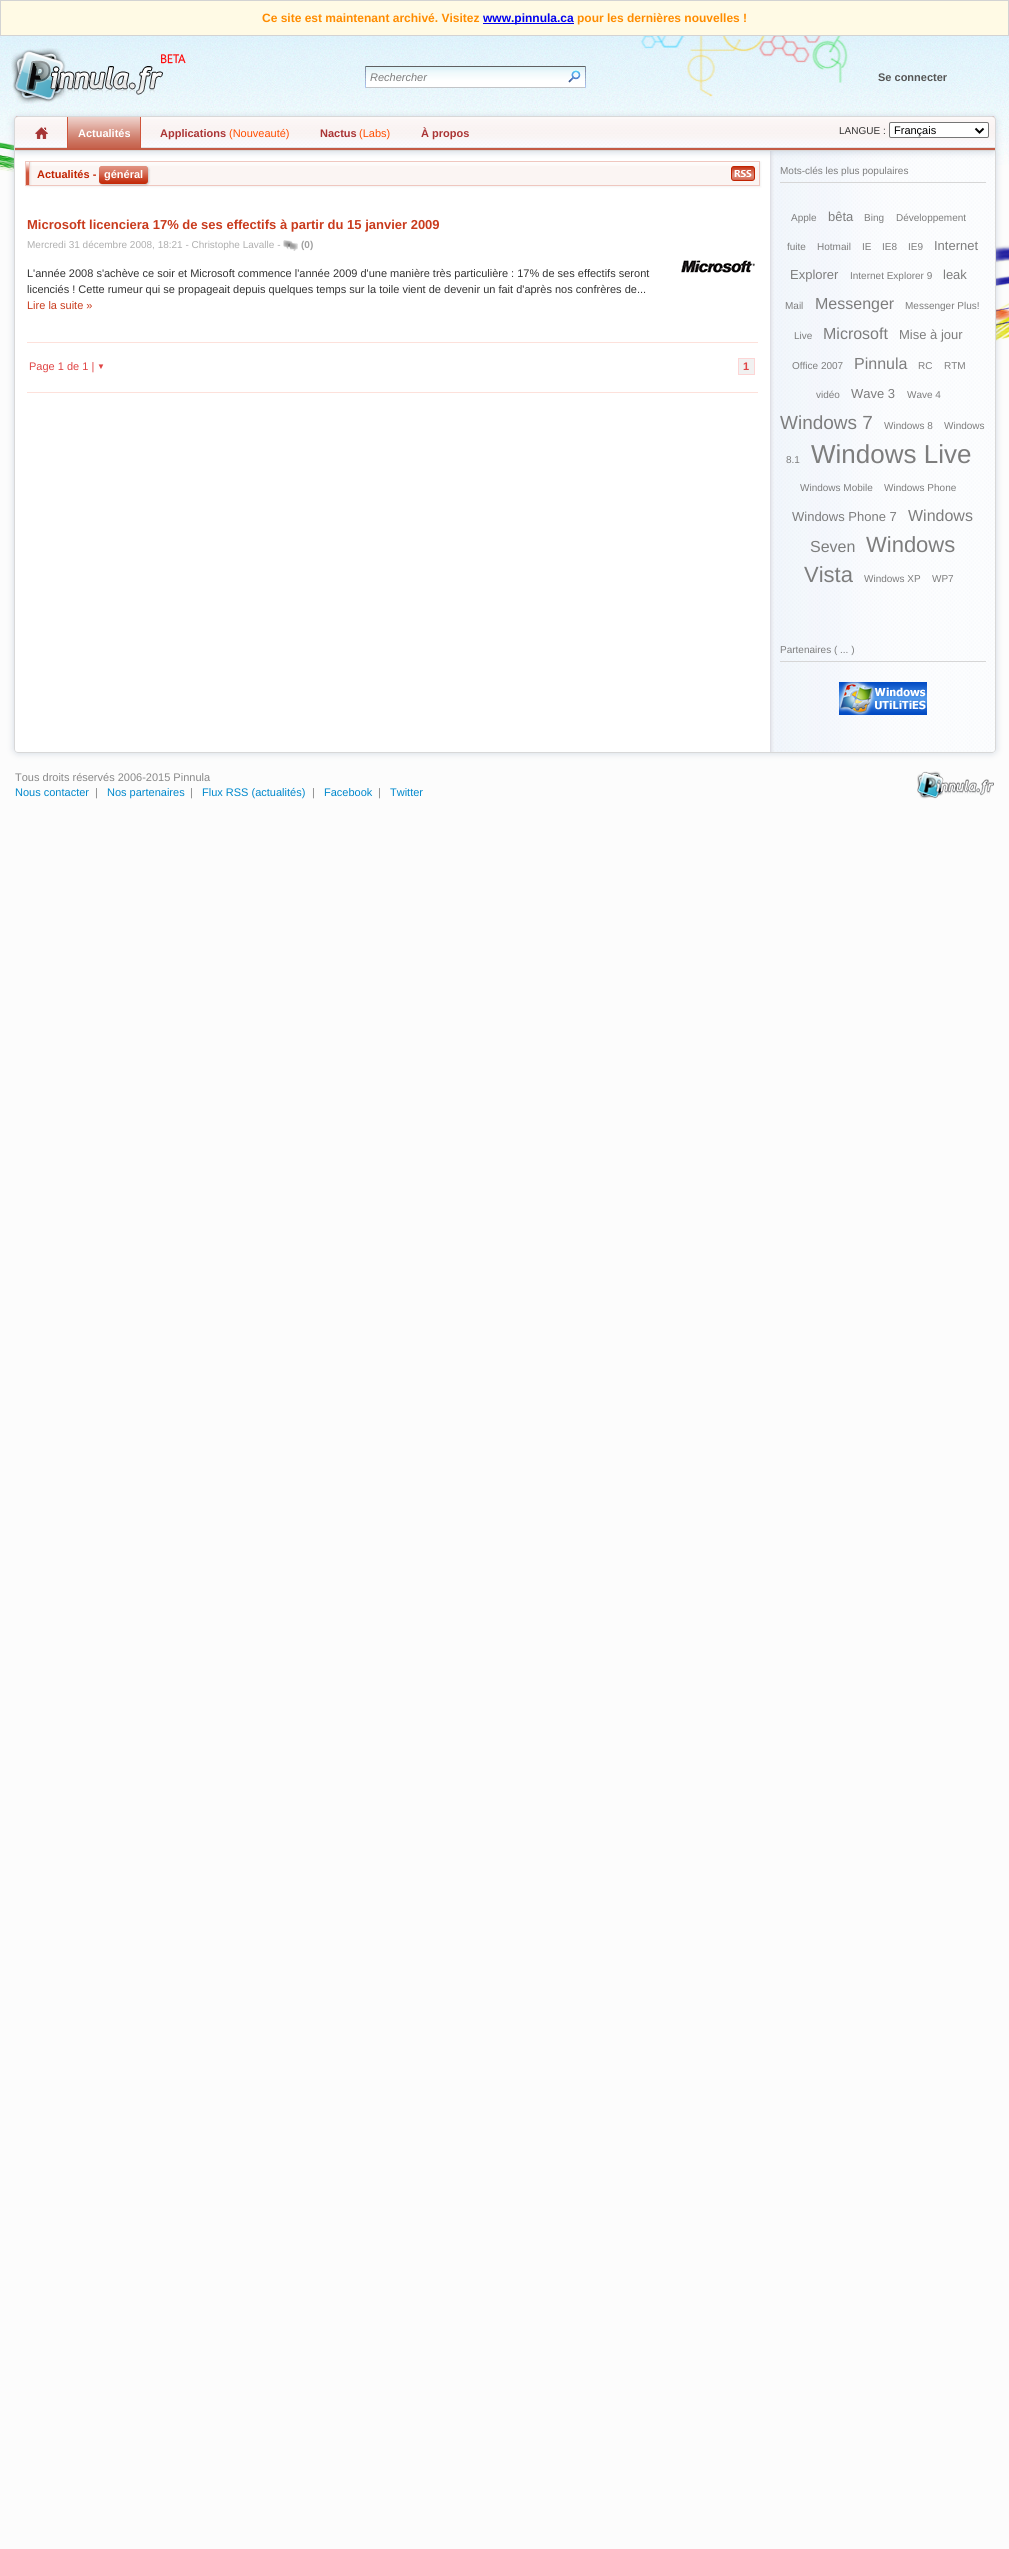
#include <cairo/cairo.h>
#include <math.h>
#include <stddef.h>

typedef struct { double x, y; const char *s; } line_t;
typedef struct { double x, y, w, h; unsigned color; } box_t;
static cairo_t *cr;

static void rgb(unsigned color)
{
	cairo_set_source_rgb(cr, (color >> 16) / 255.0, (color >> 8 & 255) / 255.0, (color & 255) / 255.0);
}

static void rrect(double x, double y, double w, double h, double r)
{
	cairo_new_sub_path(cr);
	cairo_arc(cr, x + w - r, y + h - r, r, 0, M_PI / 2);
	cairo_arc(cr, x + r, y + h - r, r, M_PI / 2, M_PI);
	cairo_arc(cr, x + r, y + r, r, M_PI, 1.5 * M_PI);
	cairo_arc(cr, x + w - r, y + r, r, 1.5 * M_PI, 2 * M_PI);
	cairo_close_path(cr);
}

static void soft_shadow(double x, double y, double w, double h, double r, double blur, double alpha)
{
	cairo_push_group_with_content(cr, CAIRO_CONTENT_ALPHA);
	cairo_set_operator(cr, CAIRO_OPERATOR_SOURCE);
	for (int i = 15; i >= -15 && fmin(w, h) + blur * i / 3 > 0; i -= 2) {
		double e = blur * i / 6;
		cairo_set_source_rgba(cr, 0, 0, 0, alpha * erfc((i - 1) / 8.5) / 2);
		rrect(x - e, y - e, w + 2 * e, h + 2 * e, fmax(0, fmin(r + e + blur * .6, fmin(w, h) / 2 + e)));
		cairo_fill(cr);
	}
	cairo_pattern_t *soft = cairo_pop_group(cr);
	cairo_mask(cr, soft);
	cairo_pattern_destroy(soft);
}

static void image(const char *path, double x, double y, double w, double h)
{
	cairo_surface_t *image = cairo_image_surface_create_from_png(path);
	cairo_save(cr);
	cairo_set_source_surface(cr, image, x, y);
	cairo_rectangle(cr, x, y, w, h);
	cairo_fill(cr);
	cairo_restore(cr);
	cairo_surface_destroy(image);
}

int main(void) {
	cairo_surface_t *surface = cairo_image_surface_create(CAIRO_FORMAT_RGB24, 1009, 2549);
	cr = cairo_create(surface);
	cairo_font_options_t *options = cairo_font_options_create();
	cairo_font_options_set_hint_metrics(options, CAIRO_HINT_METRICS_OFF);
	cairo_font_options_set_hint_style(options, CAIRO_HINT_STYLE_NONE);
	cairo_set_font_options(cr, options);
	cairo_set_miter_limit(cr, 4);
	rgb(0xfcfcfc);
	cairo_paint(cr);
	image("img/1.png", 0, 36, 1009, 129);
	rgb(0xfffae5);
	cairo_rectangle(cr, 0.5, 0.5, 1008, 35);
	cairo_fill_preserve(cr);
	rgb(0xd3d3d3);
	cairo_set_line_width(cr, 1);
	cairo_stroke(cr);
	rgb(0x0000ee);
	cairo_rectangle(cr, 483, 23, 91, 1);
	cairo_fill(cr);
	image("img/2.png", 0, 36, 1009, 306);
	image("img/3.png", 11, 48, 175, 56);
	image("img/4.png", 366, 66, 219, 22);
	image("img/5.png", 365, 66, 1, 22);
	image("img/6.png", 568, 70, 13, 13);
	image("img/5.png", 585, 66, 1, 22);
	rgb(0xbcc7d4);
	soft_shadow(14, 151, 982, 602, 4, 3.5, 0.7);
	rgb(0xffffff);
	cairo_new_path(cr);
	cairo_move_to(cr, 14, 151);
	cairo_line_to(cr, 996, 151);
	cairo_line_to(cr, 996, 749);
	cairo_curve_to(cr, 996, 751, 994, 753, 992, 753);
	cairo_line_to(cr, 18, 753);
	cairo_curve_to(cr, 16, 753, 14, 751, 14, 749);
	cairo_close_path(cr);
	cairo_fill(cr);
	image("img/10.png", 770, 151, 225, 602);
	rgb(0xd8d8d8);
	cairo_set_fill_rule(cr, CAIRO_FILL_RULE_EVEN_ODD);
	cairo_new_path(cr);
	cairo_move_to(cr, 14, 151);
	cairo_line_to(cr, 996, 151);
	cairo_line_to(cr, 996, 749);
	cairo_curve_to(cr, 996, 751, 994, 753, 992, 753);
	cairo_line_to(cr, 18, 753);
	cairo_curve_to(cr, 16, 753, 14, 751, 14, 749);
	cairo_close_path(cr);
	cairo_move_to(cr, 15, 151);
	cairo_line_to(cr, 995, 151);
	cairo_line_to(cr, 995, 749);
	cairo_curve_to(cr, 995, 751, 994, 752, 992, 752);
	cairo_line_to(cr, 18, 752);
	cairo_curve_to(cr, 16, 752, 15, 751, 15, 749);
	cairo_close_path(cr);
	cairo_fill(cr);
	rgb(0x000000);
	soft_shadow(26, 162, 735, 25, 0, 1, 0.05);
	rgb(0xfbf5f3);
	cairo_rectangle(cr, 30, 162, 729, 23);
	cairo_fill(cr);
	image("img/11.png", 30, 162, 729, 4);
	cairo_rectangle(cr, 25.5, 161.5, 734, 24);
	rgb(0xefc7bf);
	cairo_stroke(cr);
	rgb(0x000000);
	soft_shadow(27, 162, 4, 23, 0, 1, 0.06);
	rgb(0xcf553b);
	cairo_rectangle(cr, 26, 162, 3, 23);
	cairo_fill(cr);
	image("img/12.png", 26, 162, 3, 11);
	rgb(0xefc7bf);
	cairo_rectangle(cr, 29, 162, 1, 23);
	cairo_fill(cr);
	rgb(0xbcc7d4);
	soft_shadow(14, 117, 982, 35, 4, 3.5, 0.7);
	rgb(0xc35b44);
	cairo_new_path(cr);
	cairo_move_to(cr, 18, 116);
	cairo_line_to(cr, 992, 116);
	cairo_curve_to(cr, 994, 116, 996, 118, 996, 120);
	cairo_line_to(cr, 996, 151);
	cairo_line_to(cr, 14, 151);
	cairo_line_to(cr, 14, 120);
	cairo_curve_to(cr, 14, 118, 16, 116, 18, 116);
	cairo_close_path(cr);
	cairo_fill(cr);
	image("img/7.png", 14, 117, 982, 31);
	cairo_new_path(cr);
	cairo_move_to(cr, 18, 116.5);
	cairo_line_to(cr, 992, 116.5);
	cairo_curve_to(cr, 994, 116.5, 995.5, 118, 995.5, 120);
	cairo_line_to(cr, 995.5, 150.5);
	cairo_line_to(cr, 14.5, 150.5);
	cairo_line_to(cr, 14.5, 120);
	cairo_curve_to(cr, 14.5, 118, 16, 116.5, 18, 116.5);
	cairo_close_path(cr);
	rgb(0xd8d8d8);
	cairo_stroke(cr);
	image("img/8.png", 35, 127, 13, 12);
	rgb(0xc35b44);
	cairo_rectangle(cr, 68, 117, 72, 31);
	cairo_fill(cr);
	image("img/9.png", 68, 117, 72, 31);
	rgb(0xcf553b);
	cairo_rectangle(cr, 140, 117, 1, 31);
	cairo_fill(cr);
	cairo_rectangle(cr, 67, 117, 1, 31);
	cairo_fill(cr);
	rgb(0xffffff);
	rrect(889.5, 122.5, 99, 15, 1.5);
	cairo_fill_preserve(cr);
	rgb(0x767676);
	cairo_stroke(cr);
	cairo_new_path(cr);
	cairo_move_to(cr, 975.5, 128.5);
	cairo_line_to(cr, 979.5, 132.5);
	cairo_line_to(cr, 983.5, 128.5);
	rgb(0x000000);
	cairo_set_line_width(cr, 2);
	cairo_stroke(cr);
	rgb(0x000000);
	soft_shadow(100, 167, 49, 18, 3, 1, 0.2);
	rgb(0xc12200);
	rrect(99, 166, 49, 18, 3);
	cairo_fill(cr);
	image("img/13.png", 99, 166, 49, 18);
	image("img/14.png", 731, 166, 24, 15);
	image("img/15.png", 283, 240, 15, 11);
	image("img/16.png", 681, 260, 74, 13);
	rgb(0xfde1db);
	cairo_rectangle(cr, 27, 342, 731, 1);
	cairo_fill(cr);
	rgb(0xf1f1f1);
	cairo_rectangle(cr, 738.5, 358.5, 16, 16);
	cairo_fill_preserve(cr);
	rgb(0xfdd5d5);
	cairo_set_line_width(cr, 1);
	cairo_stroke(cr);
	{
		static const box_t items[] = {
			{27, 392, 731, 1, 0xfde1db},
			{780, 182, 206, 1, 0xd6d6d6},
			{780, 661, 206, 1, 0xd6d6d6},
		};
		for (size_t i = 0; i < sizeof items / sizeof *items; i++) {
			rgb(items[i].color);
			cairo_rectangle(cr, items[i].x, items[i].y, items[i].w, items[i].h);
			cairo_fill(cr);
		}
	}
	image("img/17.png", 839, 682, 88, 33);
	image("img/18.png", 917, 771, 77, 28);
	cairo_select_font_face(cr, "Liberation Sans", CAIRO_FONT_SLANT_NORMAL, CAIRO_FONT_WEIGHT_BOLD);
	cairo_set_font_size(cr, 12);
	rgb(0xff8c00);
	cairo_move_to(cr, 262, 22);
	cairo_show_text(cr, "Ce site est maintenant archivé. Visitez");
	rgb(0x0000ee);
	cairo_move_to(cr, 483, 22);
	cairo_show_text(cr, "www.pinnula.ca");
	rgb(0xff8c00);
	cairo_move_to(cr, 577, 22);
	cairo_show_text(cr, "pour les dernières nouvelles !");
	cairo_select_font_face(cr, "Liberation Sans", CAIRO_FONT_SLANT_ITALIC, CAIRO_FONT_WEIGHT_NORMAL);
	cairo_set_font_size(cr, 11);
	rgb(0x7d7d7d);
	cairo_move_to(cr, 370, 81);
	cairo_show_text(cr, "Rechercher");
	cairo_select_font_face(cr, "Liberation Sans", CAIRO_FONT_SLANT_NORMAL, CAIRO_FONT_WEIGHT_BOLD);
	rgb(0x555555);
	cairo_move_to(cr, 878, 81);
	cairo_show_text(cr, "Se connecter");
	rgb(0xffffff);
	cairo_move_to(cr, 78, 137);
	cairo_show_text(cr, "Actualités");
	rgb(0xaa3434);
	cairo_move_to(cr, 160, 137);
	cairo_show_text(cr, "Applications");
	cairo_select_font_face(cr, "Liberation Sans", CAIRO_FONT_SLANT_NORMAL, CAIRO_FONT_WEIGHT_NORMAL);
	rgb(0xff4e00);
	cairo_move_to(cr, 229, 137);
	cairo_show_text(cr, "(Nouveauté)");
	cairo_select_font_face(cr, "Liberation Sans", CAIRO_FONT_SLANT_NORMAL, CAIRO_FONT_WEIGHT_BOLD);
	rgb(0xaa3434);
	cairo_move_to(cr, 320, 137);
	cairo_show_text(cr, "Nactus");
	cairo_select_font_face(cr, "Liberation Sans", CAIRO_FONT_SLANT_NORMAL, CAIRO_FONT_WEIGHT_NORMAL);
	rgb(0xff4e00);
	cairo_move_to(cr, 359, 137);
	cairo_show_text(cr, "(Labs)");
	cairo_select_font_face(cr, "Liberation Sans", CAIRO_FONT_SLANT_NORMAL, CAIRO_FONT_WEIGHT_BOLD);
	rgb(0xaa3434);
	cairo_move_to(cr, 421, 137);
	cairo_show_text(cr, "À propos");
	cairo_select_font_face(cr, "Liberation Sans", CAIRO_FONT_SLANT_NORMAL, CAIRO_FONT_WEIGHT_NORMAL);
	cairo_set_font_size(cr, 10);
	rgb(0x333333);
	cairo_move_to(cr, 839, 134);
	cairo_show_text(cr, "LANGUE :");
	cairo_set_font_size(cr, 11);
	rgb(0x000000);
	cairo_move_to(cr, 894, 134);
	cairo_show_text(cr, "Français");
	cairo_select_font_face(cr, "Liberation Sans", CAIRO_FONT_SLANT_NORMAL, CAIRO_FONT_WEIGHT_BOLD);
	rgb(0xc12200);
	cairo_move_to(cr, 37, 178);
	cairo_show_text(cr, "Actualités -");
	rgb(0xffffff);
	cairo_move_to(cr, 104, 178);
	cairo_show_text(cr, "général");
	cairo_set_font_size(cr, 13);
	rgb(0xc93b1d);
	cairo_move_to(cr, 27, 229);
	cairo_show_text(cr, "Microsoft licenciera 17% de ses effectifs à partir du 15 janvier 2009");
	cairo_select_font_face(cr, "Liberation Sans", CAIRO_FONT_SLANT_NORMAL, CAIRO_FONT_WEIGHT_NORMAL);
	cairo_set_font_size(cr, 10);
	rgb(0xafafaf);
	cairo_move_to(cr, 27, 248);
	cairo_show_text(cr, "Mercredi 31 décembre 2008, 18:21 - Christophe Lavalle -");
	cairo_select_font_face(cr, "Liberation Sans", CAIRO_FONT_SLANT_NORMAL, CAIRO_FONT_WEIGHT_BOLD);
	rgb(0x9f9f9f);
	cairo_move_to(cr, 301, 248);
	cairo_show_text(cr, "(0)");
	cairo_select_font_face(cr, "Liberation Sans", CAIRO_FONT_SLANT_NORMAL, CAIRO_FONT_WEIGHT_NORMAL);
	cairo_set_font_size(cr, 11);
	rgb(0x333333);
	cairo_move_to(cr, 27, 277);
	cairo_show_text(cr, "L'année 2008 s'achève ce soir et Microsoft commence l'année 2009 d'une manière très particulière : 17% de ses effectifs seront");
	cairo_move_to(cr, 27, 293);
	cairo_show_text(cr, "licenciés ! Cette rumeur qui se propageait depuis quelques temps sur la toile vient de devenir un fait d'après nos confrères de...");
	rgb(0xc93b1d);
	cairo_move_to(cr, 27, 309);
	cairo_show_text(cr, "Lire la suite »");
	rgb(0xe04545);
	cairo_move_to(cr, 29, 370);
	cairo_show_text(cr, "Page 1 de 1 |");
	cairo_set_font_size(cr, 8);
	cairo_move_to(cr, 97, 369);
	cairo_show_text(cr, "▼");
	cairo_select_font_face(cr, "Liberation Sans", CAIRO_FONT_SLANT_NORMAL, CAIRO_FONT_WEIGHT_BOLD);
	cairo_set_font_size(cr, 11);
	cairo_move_to(cr, 743, 370);
	cairo_show_text(cr, "1");
	cairo_select_font_face(cr, "Liberation Sans", CAIRO_FONT_SLANT_NORMAL, CAIRO_FONT_WEIGHT_NORMAL);
	cairo_set_font_size(cr, 10);
	rgb(0x7d7d7d);
	cairo_move_to(cr, 780, 174);
	cairo_show_text(cr, "Mots-clés les plus populaires");
	cairo_move_to(cr, 791, 221);
	cairo_show_text(cr, "Apple");
	cairo_set_font_size(cr, 13);
	cairo_move_to(cr, 828, 221);
	cairo_show_text(cr, "bêta");
	cairo_set_font_size(cr, 10);
	{
		static const line_t items[] = {
			{864, 221, "Bing"},
			{896, 221, "Développement"},
			{787, 250, "fuite"},
			{817, 250, "Hotmail"},
			{862, 250, "IE"},
			{882, 250, "IE8"},
			{908, 250, "IE9"},
		};
		for (size_t i = 0; i < sizeof items / sizeof *items; i++) {
			cairo_move_to(cr, items[i].x, items[i].y);
			cairo_show_text(cr, items[i].s);
		}
	}
	cairo_set_font_size(cr, 13);
	cairo_move_to(cr, 934, 250);
	cairo_show_text(cr, "Internet");
	cairo_move_to(cr, 790, 279);
	cairo_show_text(cr, "Explorer");
	cairo_set_font_size(cr, 10);
	cairo_move_to(cr, 850, 279);
	cairo_show_text(cr, "Internet Explorer 9");
	cairo_set_font_size(cr, 13);
	cairo_move_to(cr, 943, 279);
	cairo_show_text(cr, "leak");
	cairo_set_font_size(cr, 10);
	cairo_move_to(cr, 785, 309);
	cairo_show_text(cr, "Mail");
	cairo_set_font_size(cr, 16);
	cairo_move_to(cr, 815, 309);
	cairo_show_text(cr, "Messenger");
	cairo_set_font_size(cr, 10);
	cairo_move_to(cr, 905, 309);
	cairo_show_text(cr, "Messenger Plus!");
	cairo_move_to(cr, 794, 339);
	cairo_show_text(cr, "Live");
	cairo_set_font_size(cr, 16);
	cairo_move_to(cr, 823, 339);
	cairo_show_text(cr, "Microsoft");
	cairo_set_font_size(cr, 13);
	cairo_move_to(cr, 899, 339);
	cairo_show_text(cr, "Mise à jour");
	cairo_set_font_size(cr, 10);
	cairo_move_to(cr, 792, 369);
	cairo_show_text(cr, "Office 2007");
	cairo_set_font_size(cr, 16);
	cairo_move_to(cr, 854, 369);
	cairo_show_text(cr, "Pinnula");
	cairo_set_font_size(cr, 10);
	{
		static const line_t items[] = {
			{918, 369, "RC"},
			{944, 369, "RTM"},
			{816, 398, "vidéo"},
		};
		for (size_t i = 0; i < sizeof items / sizeof *items; i++) {
			cairo_move_to(cr, items[i].x, items[i].y);
			cairo_show_text(cr, items[i].s);
		}
	}
	cairo_set_font_size(cr, 13);
	cairo_move_to(cr, 851, 398);
	cairo_show_text(cr, "Wave 3");
	cairo_set_font_size(cr, 10);
	cairo_move_to(cr, 907, 398);
	cairo_show_text(cr, "Wave 4");
	cairo_set_font_size(cr, 19);
	cairo_move_to(cr, 780, 429);
	cairo_show_text(cr, "Windows 7");
	cairo_set_font_size(cr, 10);
	{
		static const line_t items[] = {
			{884, 429, "Windows 8"},
			{944, 429, "Windows"},
			{786, 463, "8.1"},
		};
		for (size_t i = 0; i < sizeof items / sizeof *items; i++) {
			cairo_move_to(cr, items[i].x, items[i].y);
			cairo_show_text(cr, items[i].s);
		}
	}
	cairo_set_font_size(cr, 26);
	cairo_move_to(cr, 811, 463);
	cairo_show_text(cr, "Windows Live");
	cairo_set_font_size(cr, 10);
	cairo_move_to(cr, 800, 491);
	cairo_show_text(cr, "Windows Mobile");
	cairo_move_to(cr, 884, 491);
	cairo_show_text(cr, "Windows Phone");
	cairo_set_font_size(cr, 13);
	cairo_move_to(cr, 792, 521);
	cairo_show_text(cr, "Windows Phone 7");
	cairo_set_font_size(cr, 16);
	cairo_move_to(cr, 908, 521);
	cairo_show_text(cr, "Windows");
	cairo_move_to(cr, 810, 552);
	cairo_show_text(cr, "Seven");
	cairo_set_font_size(cr, 22);
	cairo_move_to(cr, 866, 552);
	cairo_show_text(cr, "Windows");
	cairo_move_to(cr, 804, 582);
	cairo_show_text(cr, "Vista");
	cairo_set_font_size(cr, 10);
	{
		static const line_t items[] = {
			{864, 582, "Windows XP"},
			{932, 582, "WP7"},
			{780, 653, "Partenaires ( ... )"},
		};
		for (size_t i = 0; i < sizeof items / sizeof *items; i++) {
			cairo_move_to(cr, items[i].x, items[i].y);
			cairo_show_text(cr, items[i].s);
		}
	}
	cairo_set_font_size(cr, 11);
	rgb(0x888888);
	cairo_move_to(cr, 15, 781);
	cairo_show_text(cr, "Tous droits réservés 2006-2015 Pinnula");
	rgb(0x0088cc);
	cairo_move_to(cr, 15, 796);
	cairo_show_text(cr, "Nous contacter");
	rgb(0x888888);
	cairo_move_to(cr, 95, 796);
	cairo_show_text(cr, "|");
	rgb(0x0088cc);
	cairo_move_to(cr, 107, 796);
	cairo_show_text(cr, "Nos partenaires");
	rgb(0x888888);
	cairo_move_to(cr, 190, 796);
	cairo_show_text(cr, "|");
	rgb(0x0088cc);
	cairo_move_to(cr, 202, 796);
	cairo_show_text(cr, "Flux RSS (actualités)");
	rgb(0x888888);
	cairo_move_to(cr, 312, 796);
	cairo_show_text(cr, "|");
	rgb(0x0088cc);
	cairo_move_to(cr, 324, 796);
	cairo_show_text(cr, "Facebook");
	rgb(0x888888);
	cairo_move_to(cr, 378, 796);
	cairo_show_text(cr, "|");
	rgb(0x0088cc);
	cairo_move_to(cr, 390, 796);
	cairo_show_text(cr, "Twitter");
	cairo_surface_write_to_png(surface, "page.png");
	cairo_font_options_destroy(options);
	cairo_destroy(cr);
	cairo_surface_destroy(surface);
	return 0;
}
